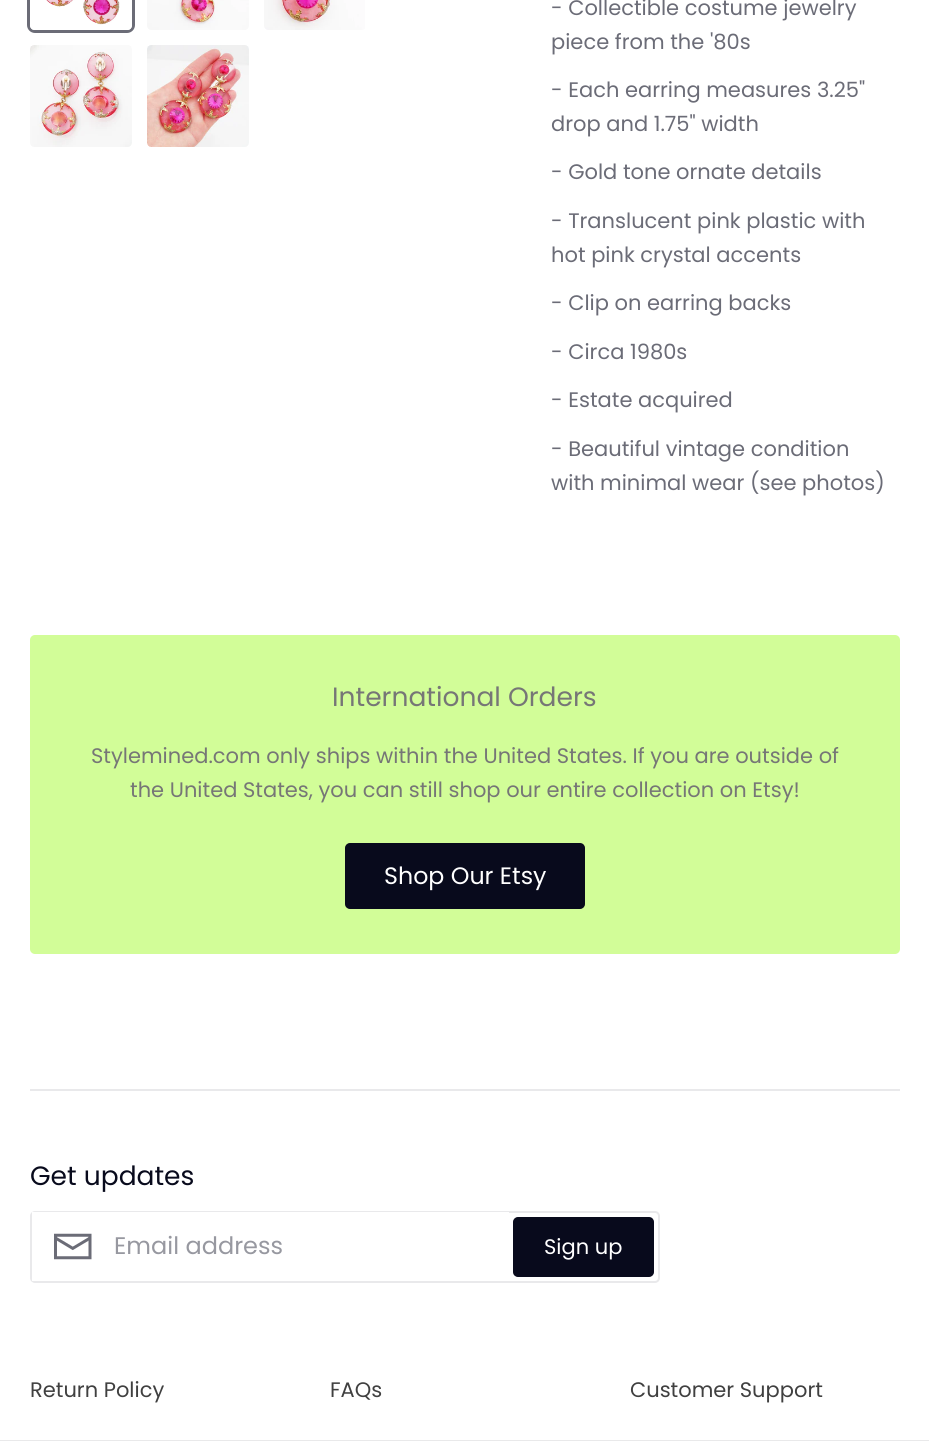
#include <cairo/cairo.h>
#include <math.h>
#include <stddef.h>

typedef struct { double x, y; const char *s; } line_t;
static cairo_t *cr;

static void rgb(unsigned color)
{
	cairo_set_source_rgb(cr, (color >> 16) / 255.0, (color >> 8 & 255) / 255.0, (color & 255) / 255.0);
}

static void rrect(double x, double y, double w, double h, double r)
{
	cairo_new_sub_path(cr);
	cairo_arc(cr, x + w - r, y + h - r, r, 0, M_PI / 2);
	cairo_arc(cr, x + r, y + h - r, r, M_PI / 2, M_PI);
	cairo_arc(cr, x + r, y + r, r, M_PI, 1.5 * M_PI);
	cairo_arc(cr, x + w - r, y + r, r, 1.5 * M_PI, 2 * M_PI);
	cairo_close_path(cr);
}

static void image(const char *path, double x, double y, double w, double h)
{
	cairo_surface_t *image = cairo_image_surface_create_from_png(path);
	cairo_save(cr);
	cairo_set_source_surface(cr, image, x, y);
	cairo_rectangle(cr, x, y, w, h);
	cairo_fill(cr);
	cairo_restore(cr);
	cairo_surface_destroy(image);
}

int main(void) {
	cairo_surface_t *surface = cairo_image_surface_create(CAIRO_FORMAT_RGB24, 929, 1441);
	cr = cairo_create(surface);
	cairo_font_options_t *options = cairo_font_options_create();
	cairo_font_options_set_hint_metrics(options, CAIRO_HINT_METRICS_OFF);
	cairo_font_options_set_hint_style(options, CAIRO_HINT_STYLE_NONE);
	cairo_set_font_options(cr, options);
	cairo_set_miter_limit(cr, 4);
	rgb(0xffffff);
	cairo_paint(cr);
	rrect(28.5, -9.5, 105, 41, 6.5);
	rgb(0x6b6c77);
	cairo_set_line_width(cr, 3);
	cairo_stroke(cr);
	image("img/1.png", 30, 0, 102, 30);
	image("img/2.png", 147, 0, 102, 30);
	image("img/3.png", 264, 0, 101, 30);
	image("img/4.png", 30, 45, 102, 102);
	image("img/5.png", 147, 45, 102, 102);
	rgb(0xd2fd98);
	rrect(30, 635, 870, 319, 5);
	cairo_fill(cr);
	rgb(0x080a1c);
	rrect(346, 844, 238, 64, 4);
	cairo_fill_preserve(cr);
	cairo_set_line_width(cr, 2);
	cairo_stroke(cr);
	rgb(0xe9e9eb);
	cairo_rectangle(cr, 30, 1089, 870, 2);
	cairo_fill(cr);
	rrect(31, 1212, 628, 70, 4);
	cairo_stroke(cr);
	rgb(0xffffff);
	cairo_rectangle(cr, 32, 1212, 477, 69);
	cairo_fill(cr);
	image("img/6.png", 54, 1233, 38, 27);
	rgb(0x080a1c);
	rrect(514, 1218, 139, 58, 4);
	cairo_fill_preserve(cr);
	cairo_stroke(cr);
	cairo_set_source_rgba(cr, 0.42, 0.424, 0.467, 0.15);
	cairo_rectangle(cr, 0, 1440, 929, 1);
	cairo_fill(cr);
	cairo_select_font_face(cr, "Poppins", CAIRO_FONT_SLANT_NORMAL, CAIRO_FONT_WEIGHT_NORMAL);
	cairo_set_font_size(cr, 21);
	rgb(0x6b6c77);
	{
		static const line_t items[] = {
			{551, 15, "- Collectible costume jewelry"},
			{551, 49, "piece from the '80s"},
			{551, 97, "- Each earring measures 3.25\""},
			{551, 131, "drop and 1.75\" width"},
			{551, 179, "- Gold tone ornate details"},
			{551, 228, "- Translucent pink plastic with"},
			{551, 262, "hot pink crystal accents"},
			{551, 310, "- Clip on earring backs"},
			{551, 359, "- Circa 1980s"},
			{551, 407, "- Estate acquired"},
			{551, 456, "- Beautiful vintage condition"},
			{551, 490, "with minimal wear (see photos)"},
		};
		for (size_t i = 0; i < sizeof items / sizeof *items; i++) {
			cairo_move_to(cr, items[i].x, items[i].y);
			cairo_show_text(cr, items[i].s);
		}
	}
	cairo_set_font_size(cr, 26.5);
	rgb(0x767676);
	cairo_move_to(cr, 332, 706);
	cairo_show_text(cr, "International Orders");
	cairo_set_font_size(cr, 21);
	cairo_move_to(cr, 91, 763);
	cairo_show_text(cr, "Stylemined.com only ships within the United States. If you are outside of");
	cairo_move_to(cr, 130, 797);
	cairo_show_text(cr, "the United States, you can still shop our entire collection on Etsy!");
	cairo_set_font_size(cr, 23.75);
	rgb(0xffffff);
	cairo_move_to(cr, 384, 884);
	cairo_show_text(cr, "Shop Our Etsy");
	cairo_set_font_size(cr, 26.5);
	rgb(0x080a1c);
	cairo_move_to(cr, 30, 1185);
	cairo_show_text(cr, "Get updates");
	cairo_set_font_size(cr, 24);
	rgb(0x9798a0);
	cairo_move_to(cr, 114, 1254);
	cairo_show_text(cr, "Email address");
	cairo_set_font_size(cr, 21);
	rgb(0xffffff);
	cairo_move_to(cr, 544, 1254);
	cairo_show_text(cr, "Sign up");
	rgb(0x404040);
	{
		static const line_t items[] = {
			{30, 1397, "Return Policy"},
			{330, 1397, "FAQs"},
			{630, 1397, "Customer Support"},
		};
		for (size_t i = 0; i < sizeof items / sizeof *items; i++) {
			cairo_move_to(cr, items[i].x, items[i].y);
			cairo_show_text(cr, items[i].s);
		}
	}
	cairo_surface_write_to_png(surface, "page.png");
	cairo_font_options_destroy(options);
	cairo_destroy(cr);
	cairo_surface_destroy(surface);
	return 0;
}
